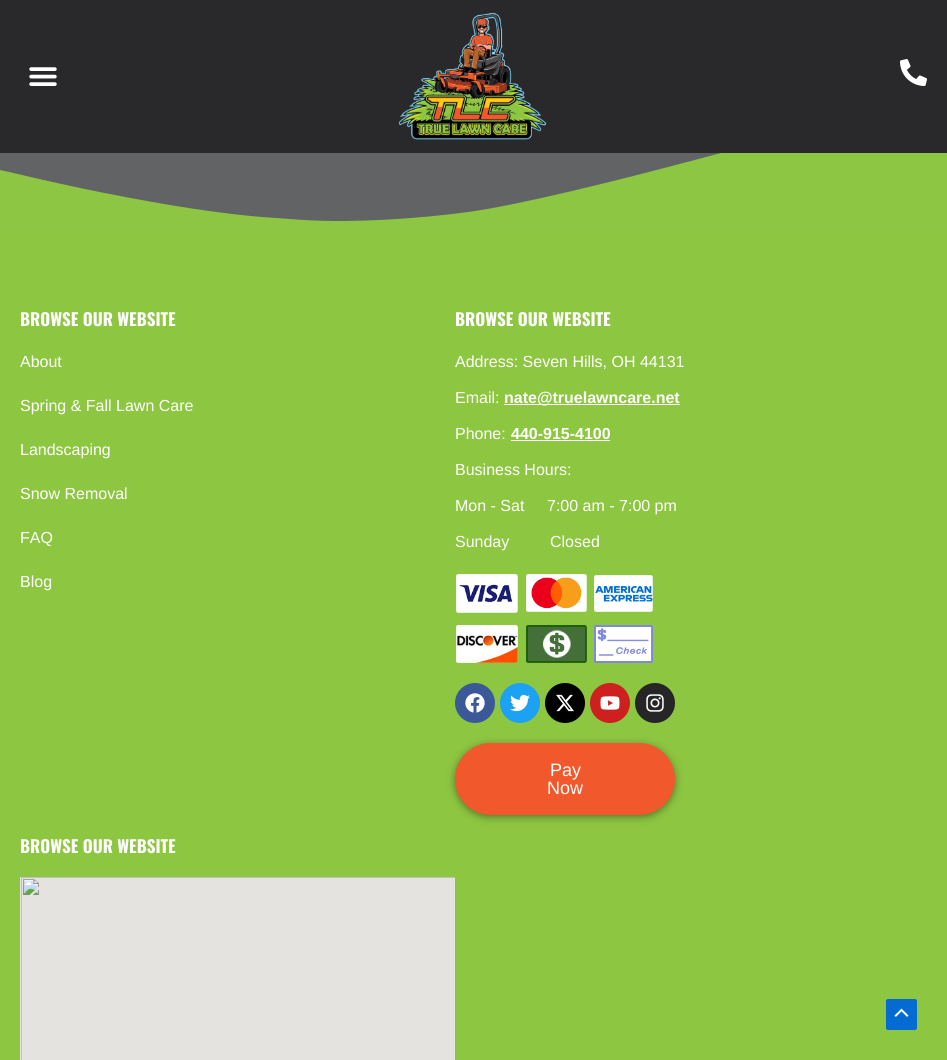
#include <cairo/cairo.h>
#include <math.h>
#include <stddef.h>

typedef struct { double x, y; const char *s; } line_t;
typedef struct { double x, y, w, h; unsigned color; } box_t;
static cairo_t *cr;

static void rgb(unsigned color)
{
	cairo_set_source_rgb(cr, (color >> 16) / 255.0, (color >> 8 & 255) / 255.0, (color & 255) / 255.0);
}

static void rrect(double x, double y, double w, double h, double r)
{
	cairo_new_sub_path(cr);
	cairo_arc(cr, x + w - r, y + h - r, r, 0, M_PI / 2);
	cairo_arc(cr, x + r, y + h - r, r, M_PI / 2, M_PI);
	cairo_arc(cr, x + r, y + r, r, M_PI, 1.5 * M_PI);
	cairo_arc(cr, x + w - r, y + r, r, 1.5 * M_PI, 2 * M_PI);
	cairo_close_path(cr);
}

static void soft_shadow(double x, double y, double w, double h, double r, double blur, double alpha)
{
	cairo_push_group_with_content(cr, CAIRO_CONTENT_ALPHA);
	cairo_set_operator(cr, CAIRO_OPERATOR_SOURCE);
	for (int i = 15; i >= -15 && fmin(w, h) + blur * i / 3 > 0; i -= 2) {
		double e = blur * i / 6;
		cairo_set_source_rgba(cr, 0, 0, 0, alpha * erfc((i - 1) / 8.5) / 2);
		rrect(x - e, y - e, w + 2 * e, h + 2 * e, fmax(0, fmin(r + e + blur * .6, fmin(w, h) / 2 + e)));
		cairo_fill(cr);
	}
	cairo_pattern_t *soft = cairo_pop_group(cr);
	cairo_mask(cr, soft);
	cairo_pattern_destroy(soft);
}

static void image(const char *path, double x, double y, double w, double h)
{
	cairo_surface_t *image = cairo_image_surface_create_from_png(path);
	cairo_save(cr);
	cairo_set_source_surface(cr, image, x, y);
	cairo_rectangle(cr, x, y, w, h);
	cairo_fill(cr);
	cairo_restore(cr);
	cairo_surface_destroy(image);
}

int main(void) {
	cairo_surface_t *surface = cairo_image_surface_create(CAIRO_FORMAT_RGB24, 947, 1060);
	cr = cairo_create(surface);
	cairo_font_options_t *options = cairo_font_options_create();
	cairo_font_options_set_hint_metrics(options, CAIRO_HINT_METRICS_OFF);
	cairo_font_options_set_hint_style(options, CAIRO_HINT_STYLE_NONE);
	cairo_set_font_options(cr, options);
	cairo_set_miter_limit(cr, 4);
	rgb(0x616365);
	cairo_paint(cr);
	rgb(0x8dc642);
	cairo_new_path(cr);
	cairo_move_to(cr, 304, 220);
	cairo_curve_to(cr, 353, 223, 416, 219, 468, 212);
	cairo_curve_to(cr, 520, 205, 623, 179, 687, 162);
	cairo_curve_to(cr, 853, 117, 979, 100, 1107, 93);
	cairo_curve_to(cr, 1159, 90, 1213, 88, 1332, 96);
	cairo_curve_to(cr, 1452, 104, 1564, 132, 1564, 132);
	cairo_line_to(cr, 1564, 229);
	cairo_line_to(cr, -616, 229);
	cairo_line_to(cr, -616, 186);
	cairo_curve_to(cr, -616, 186, -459, 141, -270, 144);
	cairo_curve_to(cr, -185, 145, -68, 153, 22, 175);
	cairo_curve_to(cr, 68, 186, 135, 200, 195, 209);
	cairo_curve_to(cr, 255, 218, 281, 218, 304, 220);
	cairo_close_path(cr);
	cairo_fill(cr);
	rgb(0x29292b);
	cairo_rectangle(cr, 0, 0, 947, 153);
	cairo_fill(cr);
	image("img/1.png", 29, 67, 28, 19);
	image("img/2.png", 398, 12, 149, 128);
	image("img/3.png", 900, 59, 27, 27);
	{
		static const box_t items[] = {
			{0, 229, 947, 831, 0x8dc641},
			{504, 404, 176, 1, 0xffffff},
			{511, 440, 99, 1, 0xffffff},
		};
		for (size_t i = 0; i < sizeof items / sizeof *items; i++) {
			rgb(items[i].color);
			cairo_rectangle(cr, items[i].x, items[i].y, items[i].w, items[i].h);
			cairo_fill(cr);
		}
	}
	image("img/4.png", 456, 574, 62, 39);
	image("img/5.png", 526, 574, 61, 38);
	image("img/6.png", 594, 575, 59, 37);
	image("img/7.png", 456, 625, 62, 38);
	image("img/8.png", 526, 625, 61, 38);
	image("img/9.png", 594, 625, 59, 38);
	rgb(0x3b5998);
	cairo_arc(cr, 475, 703, 20, 0, 2 * M_PI);
	cairo_fill(cr);
	image("img/10.png", 465, 693, 20, 20);
	rgb(0x1da1f2);
	cairo_arc(cr, 520, 703, 20, 0, 2 * M_PI);
	cairo_fill(cr);
	image("img/11.png", 510, 694, 20, 18);
	rgb(0x000000);
	cairo_arc(cr, 565, 703, 20, 0, 2 * M_PI);
	cairo_fill(cr);
	image("img/12.png", 556, 694, 18, 18);
	rgb(0xcd201f);
	cairo_arc(cr, 610, 703, 20, 0, 2 * M_PI);
	cairo_fill(cr);
	image("img/13.png", 600, 696, 20, 14);
	rgb(0x262626);
	cairo_arc(cr, 655, 703, 20, 0, 2 * M_PI);
	cairo_fill(cr);
	image("img/14.png", 646, 694, 18, 18);
	rgb(0x000000);
	soft_shadow(455, 745, 220, 72, 36, 4, 0.4);
	rgb(0xf1582c);
	rrect(455, 743, 220, 72, 36);
	cairo_fill(cr);
	image("img/15.png", 20, 877, 435, 183);
	rgb(0x046bd2);
	rrect(886, 999, 31, 31, 2);
	cairo_fill(cr);
	image("img/16.png", 894, 1008, 15, 9);
	cairo_select_font_face(cr, "Oswald", CAIRO_FONT_SLANT_NORMAL, CAIRO_FONT_WEIGHT_BOLD);
	cairo_set_font_size(cr, 17);
	rgb(0xffffff);
	cairo_move_to(cr, 20, 326);
	cairo_show_text(cr, "BROWSE OUR WEBSITE");
	cairo_select_font_face(cr, "Liberation Sans", CAIRO_FONT_SLANT_NORMAL, CAIRO_FONT_WEIGHT_NORMAL);
	cairo_set_font_size(cr, 16);
	{
		static const line_t items[] = {
			{20, 367, "About"},
			{20, 411, "Spring & Fall Lawn Care"},
			{20, 455, "Landscaping"},
			{20, 499, "Snow Removal"},
			{20, 543, "FAQ"},
			{20, 587, "Blog"},
		};
		for (size_t i = 0; i < sizeof items / sizeof *items; i++) {
			cairo_move_to(cr, items[i].x, items[i].y);
			cairo_show_text(cr, items[i].s);
		}
	}
	cairo_select_font_face(cr, "Oswald", CAIRO_FONT_SLANT_NORMAL, CAIRO_FONT_WEIGHT_BOLD);
	cairo_set_font_size(cr, 17);
	cairo_move_to(cr, 455, 326);
	cairo_show_text(cr, "BROWSE OUR WEBSITE");
	cairo_select_font_face(cr, "Liberation Sans", CAIRO_FONT_SLANT_NORMAL, CAIRO_FONT_WEIGHT_NORMAL);
	cairo_set_font_size(cr, 16);
	cairo_move_to(cr, 455, 367);
	cairo_show_text(cr, "Address: Seven Hills, OH 44131");
	cairo_move_to(cr, 455, 403);
	cairo_show_text(cr, "Email:");
	cairo_select_font_face(cr, "Liberation Sans", CAIRO_FONT_SLANT_NORMAL, CAIRO_FONT_WEIGHT_BOLD);
	cairo_move_to(cr, 504, 403);
	cairo_show_text(cr, "nate@truelawncare.net");
	cairo_select_font_face(cr, "Liberation Sans", CAIRO_FONT_SLANT_NORMAL, CAIRO_FONT_WEIGHT_NORMAL);
	cairo_move_to(cr, 455, 439);
	cairo_show_text(cr, "Phone:");
	cairo_select_font_face(cr, "Liberation Sans", CAIRO_FONT_SLANT_NORMAL, CAIRO_FONT_WEIGHT_BOLD);
	cairo_move_to(cr, 511, 439);
	cairo_show_text(cr, "440-915-4100");
	cairo_select_font_face(cr, "Liberation Sans", CAIRO_FONT_SLANT_NORMAL, CAIRO_FONT_WEIGHT_NORMAL);
	{
		static const line_t items[] = {
			{455, 475, "Business Hours:"},
			{455, 511, "Mon - Sat"},
			{547, 511, "7:00 am - 7:00 pm"},
			{455, 547, "Sunday"},
			{550, 547, "Closed"},
		};
		for (size_t i = 0; i < sizeof items / sizeof *items; i++) {
			cairo_move_to(cr, items[i].x, items[i].y);
			cairo_show_text(cr, items[i].s);
		}
	}
	cairo_set_font_size(cr, 18);
	cairo_move_to(cr, 550, 776);
	cairo_show_text(cr, "Pay");
	cairo_move_to(cr, 547, 794);
	cairo_show_text(cr, "Now");
	cairo_select_font_face(cr, "Oswald", CAIRO_FONT_SLANT_NORMAL, CAIRO_FONT_WEIGHT_BOLD);
	cairo_set_font_size(cr, 17);
	cairo_move_to(cr, 20, 853);
	cairo_show_text(cr, "BROWSE OUR WEBSITE");
	cairo_surface_write_to_png(surface, "page.png");
	cairo_font_options_destroy(options);
	cairo_destroy(cr);
	cairo_surface_destroy(surface);
	return 0;
}
